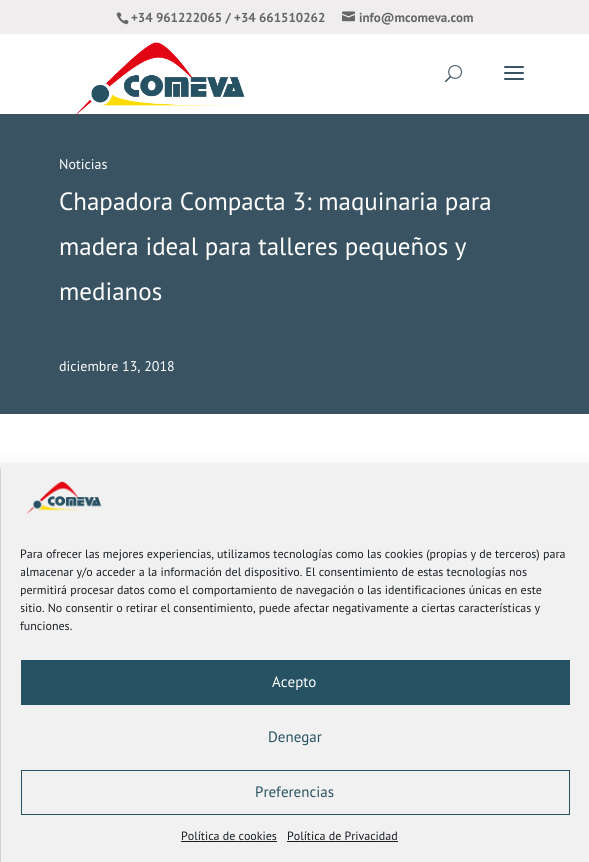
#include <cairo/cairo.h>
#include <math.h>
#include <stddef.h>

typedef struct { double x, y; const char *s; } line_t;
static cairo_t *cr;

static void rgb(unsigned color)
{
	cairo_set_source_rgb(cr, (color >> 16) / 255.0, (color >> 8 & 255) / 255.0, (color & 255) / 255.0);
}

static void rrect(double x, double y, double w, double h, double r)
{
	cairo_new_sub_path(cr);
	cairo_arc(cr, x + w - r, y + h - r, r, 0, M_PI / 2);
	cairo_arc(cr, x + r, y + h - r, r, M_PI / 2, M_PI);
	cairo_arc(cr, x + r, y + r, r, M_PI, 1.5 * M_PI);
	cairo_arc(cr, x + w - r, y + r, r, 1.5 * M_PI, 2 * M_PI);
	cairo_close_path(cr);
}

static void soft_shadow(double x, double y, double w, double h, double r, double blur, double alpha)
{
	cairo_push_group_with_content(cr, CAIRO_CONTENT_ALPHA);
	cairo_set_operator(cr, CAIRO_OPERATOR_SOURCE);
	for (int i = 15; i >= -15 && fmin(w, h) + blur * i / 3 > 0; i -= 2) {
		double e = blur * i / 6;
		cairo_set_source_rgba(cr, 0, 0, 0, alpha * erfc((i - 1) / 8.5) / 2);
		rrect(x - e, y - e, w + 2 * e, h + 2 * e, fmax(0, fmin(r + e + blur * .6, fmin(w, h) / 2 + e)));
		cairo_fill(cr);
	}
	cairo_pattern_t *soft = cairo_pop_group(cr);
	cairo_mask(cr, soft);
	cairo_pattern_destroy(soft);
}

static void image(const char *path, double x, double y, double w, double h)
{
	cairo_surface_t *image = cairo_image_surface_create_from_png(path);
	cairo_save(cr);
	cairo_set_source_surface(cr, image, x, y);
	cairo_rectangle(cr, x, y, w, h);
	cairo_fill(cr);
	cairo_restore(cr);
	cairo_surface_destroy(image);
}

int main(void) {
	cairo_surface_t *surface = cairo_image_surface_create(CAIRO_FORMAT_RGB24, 589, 862);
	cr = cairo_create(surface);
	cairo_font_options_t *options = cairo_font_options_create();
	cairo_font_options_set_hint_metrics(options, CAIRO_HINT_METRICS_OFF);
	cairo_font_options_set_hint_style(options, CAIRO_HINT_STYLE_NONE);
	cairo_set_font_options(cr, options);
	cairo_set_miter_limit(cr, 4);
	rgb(0xffffff);
	cairo_paint(cr);
	rgb(0xefeded);
	cairo_rectangle(cr, 0, 0, 589, 34);
	cairo_fill(cr);
	image("img/1.png", 116, 12, 13, 13);
	image("img/2.png", 342, 11, 13, 11);
	rgb(0x3a5362);
	cairo_rectangle(cr, 0, 114, 589, 300);
	cairo_fill(cr);
	image("img/3.png", 75, 42, 170, 74);
	image("img/4.png", 445, 65, 17, 18);
	image("img/5.png", 504, 66, 20, 14);
	rgb(0x000000);
	soft_shadow(1, 469, 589, 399, 0, 3, 0.23);
	soft_shadow(1, 473, 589, 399, 0, 10, 0.19);
	rgb(0xf1f1f1);
	cairo_rectangle(cr, 1, 463, 588, 399);
	cairo_fill(cr);
	image("img/6.png", 26, 481, 76, 34);
	rgb(0x275263);
	cairo_rectangle(cr, 21, 660, 549, 45);
	cairo_fill(cr);
	cairo_rectangle(cr, 21.5, 770.5, 548, 44);
	cairo_set_line_width(cr, 1);
	cairo_stroke(cr);
	rgb(0x191e23);
	cairo_rectangle(cr, 181, 841, 96, 1);
	cairo_fill(cr);
	cairo_rectangle(cr, 287, 841, 111, 1);
	cairo_fill(cr);
	cairo_select_font_face(cr, "PT Sans", CAIRO_FONT_SLANT_NORMAL, CAIRO_FONT_WEIGHT_BOLD);
	cairo_set_font_size(cr, 13);
	rgb(0x666666);
	cairo_move_to(cr, 131, 22);
	cairo_show_text(cr, "+34 961222065 / +34 661510262");
	cairo_move_to(cr, 359, 22);
	cairo_show_text(cr, "info@mcomeva.com");
	cairo_select_font_face(cr, "PT Sans", CAIRO_FONT_SLANT_NORMAL, CAIRO_FONT_WEIGHT_NORMAL);
	cairo_set_font_size(cr, 14);
	rgb(0xffffff);
	cairo_move_to(cr, 59, 169);
	cairo_show_text(cr, "Noticias");
	cairo_set_font_size(cr, 25);
	{
		static const line_t items[] = {
			{59, 210, "Chapadora Compacta 3: maquinaria para"},
			{59, 255, "madera ideal para talleres pequeños y"},
			{59, 300, "medianos"},
		};
		for (size_t i = 0; i < sizeof items / sizeof *items; i++) {
			cairo_move_to(cr, items[i].x, items[i].y);
			cairo_show_text(cr, items[i].s);
		}
	}
	cairo_set_font_size(cr, 14);
	cairo_move_to(cr, 59, 371);
	cairo_show_text(cr, "diciembre 13, 2018");
	cairo_set_font_size(cr, 12);
	rgb(0x191e23);
	cairo_move_to(cr, 20, 558);
	cairo_show_text(cr, "Para ofrecer las mejores experiencias, utilizamos tecnologías como las cookies (propias y de terceros) para");
	cairo_save(cr);
	cairo_rectangle(cr, 21, 545, 549, 95);
	cairo_clip(cr);
	{
		static const line_t items[] = {
			{20, 576, "almacenar y/o acceder a la información del dispositivo. El consentimiento de estas tecnologías nos"},
			{20, 594, "permitirá procesar datos como el comportamiento de navegación o las identificaciones únicas en este"},
			{20, 612, "sitio. No consentir o retirar el consentimiento, puede afectar negativamente a ciertas características y"},
		};
		for (size_t i = 0; i < sizeof items / sizeof *items; i++) {
			cairo_move_to(cr, items[i].x, items[i].y);
			cairo_show_text(cr, items[i].s);
		}
	}
	cairo_restore(cr);
	cairo_move_to(cr, 20, 630);
	cairo_show_text(cr, "funciones.");
	cairo_set_font_size(cr, 15);
	rgb(0xffffff);
	cairo_move_to(cr, 272, 687);
	cairo_show_text(cr, "Acepto");
	rgb(0x275263);
	cairo_move_to(cr, 268, 742);
	cairo_show_text(cr, "Denegar");
	cairo_move_to(cr, 255, 797);
	cairo_show_text(cr, "Preferencias");
	cairo_set_font_size(cr, 12);
	rgb(0x191e23);
	cairo_move_to(cr, 181, 840);
	cairo_show_text(cr, "Política de cookies");
	cairo_move_to(cr, 287, 840);
	cairo_show_text(cr, "Política de Privacidad");
	cairo_surface_write_to_png(surface, "page.png");
	cairo_font_options_destroy(options);
	cairo_destroy(cr);
	cairo_surface_destroy(surface);
	return 0;
}
